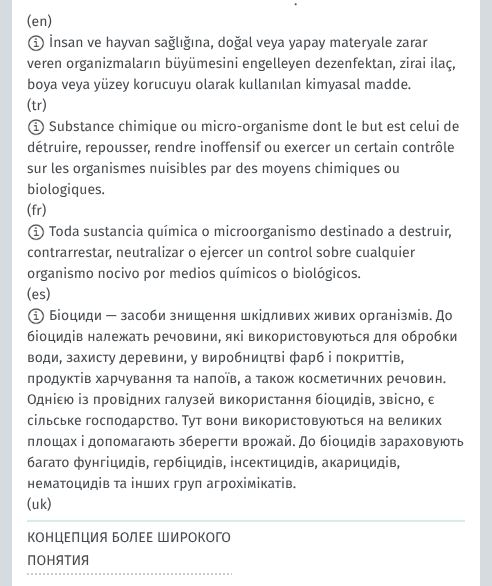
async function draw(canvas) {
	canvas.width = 492;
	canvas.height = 586;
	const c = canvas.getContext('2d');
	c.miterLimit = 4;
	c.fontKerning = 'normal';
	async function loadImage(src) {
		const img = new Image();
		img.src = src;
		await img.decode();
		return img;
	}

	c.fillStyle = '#d5dbde';
	c.fillRect(0, 0, 492, 586);
	c.fillStyle = '#fff';
	c.fillRect(12, 0, 468, 586);
	c.fillStyle = '#d4edeb';
	c.fillRect(27, 520, 438, 2);
	c.font = '14px Fira Sans';
	c.fillStyle = '#474b4f';
	c.fillText('.', 294, 5);
	c.fillText('(en)', 27, 26);
	c.drawImage(await loadImage('img1.png'), 27, 35, 18, 17);
	for (const [text, x, y] of [
		['İnsan ve hayvan sağlığına, doğal veya yapay materyale zarar', 49, 47],
		['veren organizmaların büyümesini engelleyen dezenfektan, zirai ilaç,', 27, 68],
		['boya veya yüzey korucuyu olarak kullanılan kimyasal madde.', 27, 89],
		['(tr)', 27, 110],
	]) {
		c.fillText(text, x, y);
	}
	c.drawImage(await loadImage('img1.png'), 27, 119, 18, 17);
	for (const [text, x, y] of [
		['Substance chimique ou micro-organisme dont le but est celui de', 49, 131],
		['détruire, repousser, rendre inoffensif ou exercer un certain contrôle', 27, 152],
		['sur les organismes nuisibles par des moyens chimiques ou', 27, 173],
		['biologiques.', 27, 194],
		['(fr)', 27, 215],
	]) {
		c.fillText(text, x, y);
	}
	c.drawImage(await loadImage('img1.png'), 27, 224, 18, 17);
	for (const [text, x, y] of [
		['Toda sustancia química o microorganismo destinado a destruir,', 49, 236],
		['contrarrestar, neutralizar o ejercer un control sobre cualquier', 27, 257],
		['organismo nocivo por medios químicos o biológicos.', 27, 278],
		['(es)', 27, 299],
	]) {
		c.fillText(text, x, y);
	}
	c.drawImage(await loadImage('img1.png'), 27, 308, 18, 17);
	for (const [text, x, y] of [
		['Біоциди — засоби знищення шкідливих живих організмів. До', 49, 320],
		['біоцидів належать речовини, які використовуються для обробки', 27, 341],
		['води, захисту деревини, у виробництві фарб і покриттів,', 27, 362],
		['продуктів харчування та напоїв, а також косметичних речовин.', 27, 383],
		['Однією із провідних галузей використання біоцидів, звісно, є', 27, 404],
		['сільське господарство. Тут вони використовуються на великих', 27, 425],
		['площах і допомагають зберегти врожай. До біоцидів зараховують', 27, 446],
		['багато фунгіцидів, гербіцидів, інсектицидів, акарицидів,', 27, 467],
		['нематоцидів та інших груп агрохімікатів.', 27, 488],
		['(uk)', 27, 509],
	]) {
		c.fillText(text, x, y);
	}
	c.beginPath();
	c.moveTo(27, 574);
	c.lineTo(232, 574);
	c.strokeStyle = '#ccc';
	c.lineWidth = 2;
	c.setLineDash([2, 2]);
	c.stroke();
	c.fillText('КОНЦЕПЦИЯ БОЛЕЕ ШИРОКОГО', 27, 542);
	c.fillText('ПОНЯТИЯ', 27, 565);
}

draw(document.querySelector('canvas'));
